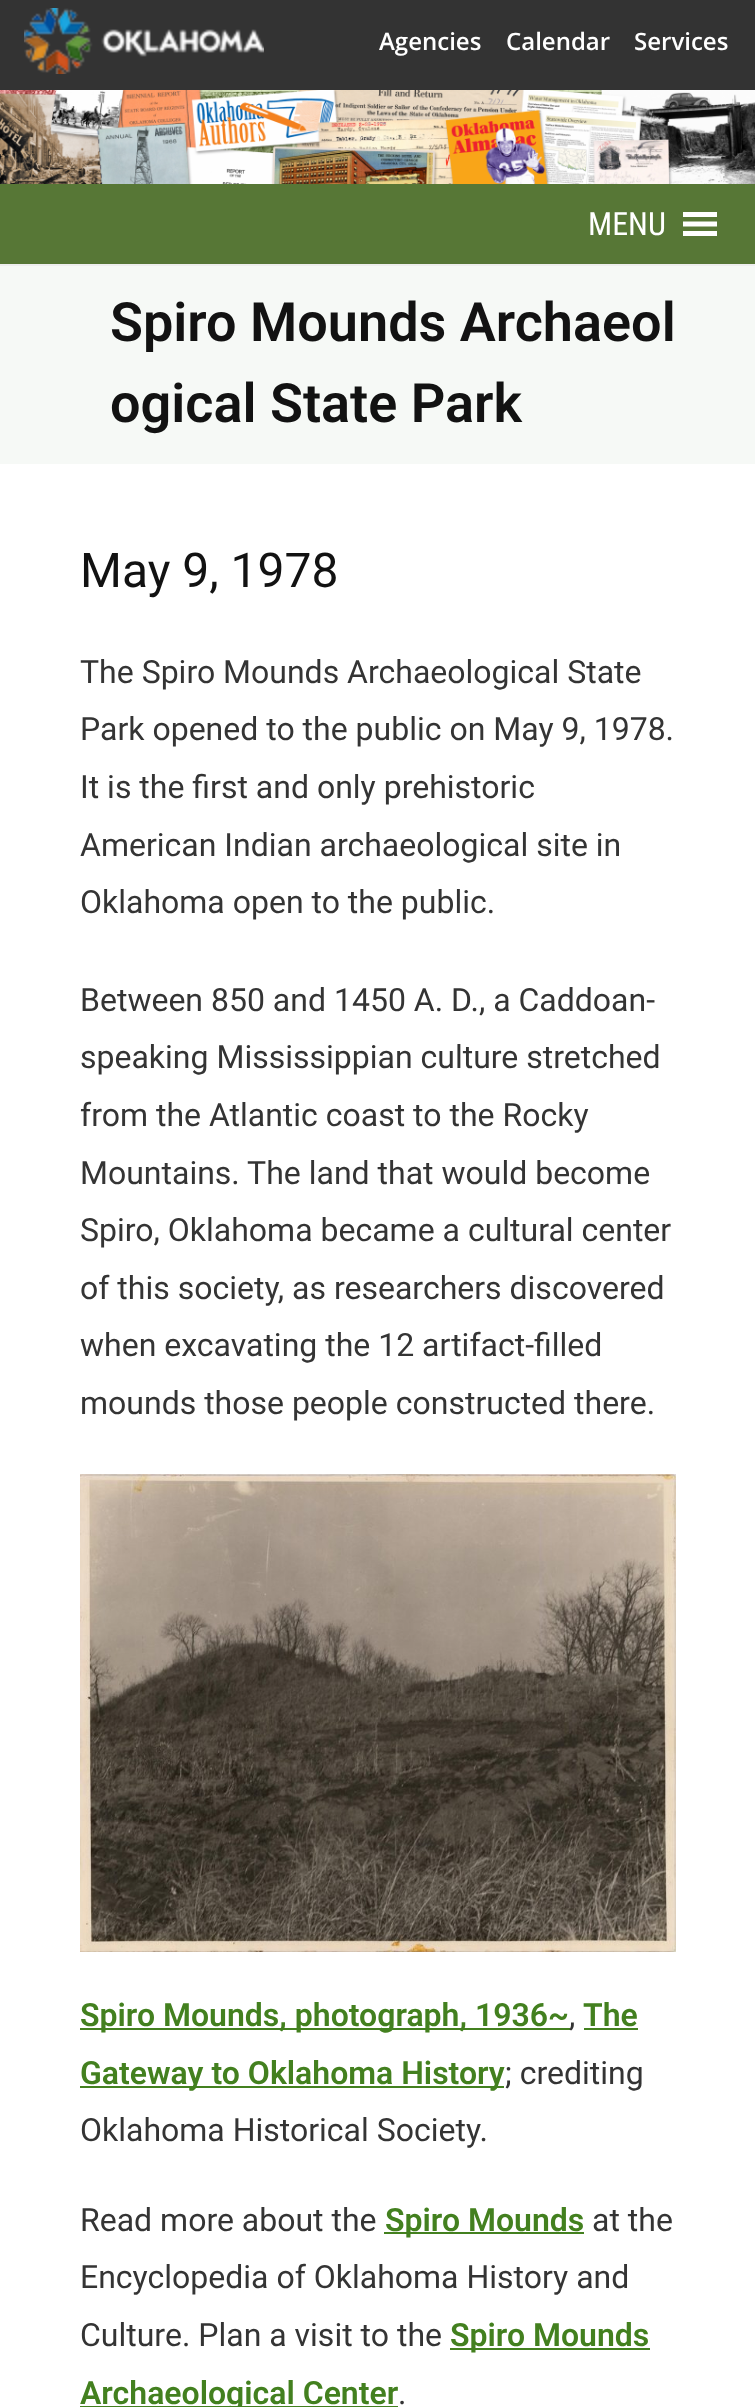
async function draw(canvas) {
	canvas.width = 755;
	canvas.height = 2407;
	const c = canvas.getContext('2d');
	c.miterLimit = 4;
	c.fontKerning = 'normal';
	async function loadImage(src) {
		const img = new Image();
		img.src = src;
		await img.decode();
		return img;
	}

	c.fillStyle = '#fff';
	c.fillRect(0, 0, 755, 2407);
	c.fillStyle = '#333';
	c.fillRect(0, 0, 755, 90);
	c.drawImage(await loadImage('img1.png'), 24, 8, 240, 66);
	c.font = '600 24px Open Sans';
	c.fillStyle = '#fff';
	for (const [text, x, y] of [
		['Agencies', 379, 50],
		['Calendar', 506, 50],
		['Services', 634, 50],
	]) {
		c.fillText(text, x, y);
	}
	c.drawImage(await loadImage('img2.png'), 0, 90, 755, 94);
	c.fillStyle = '#577736';
	c.fillRect(0, 184, 755, 80);
	c.fillStyle = '#eee';
	c.fillRect(0, 264, 755, 2);
	c.font = '32px Roboto Condensed';
	c.fillStyle = '#fff';
	c.fillText('MENU', 588, 235);
	c.beginPath();
	c.moveTo(683, 236);
	c.lineTo(717, 236);
	c.lineTo(717, 231);
	c.lineTo(683, 231);
	c.closePath();
	c.moveTo(683, 212);
	c.lineTo(683, 217);
	c.lineTo(717, 217);
	c.lineTo(717, 212);
	c.closePath();
	c.moveTo(683, 226.5);
	c.lineTo(717, 226.5);
	c.lineTo(717, 221.5);
	c.lineTo(683, 221.5);
	c.closePath();
	c.fill();
	c.fillStyle = '#f6f9f6';
	c.fillRect(0, 266, 755, 198);
	c.font = '600 54px Roboto';
	c.fillStyle = '#121212';
	c.fillText('Spiro Mounds Archaeol', 110, 341);
	c.fillText('ogical State Park', 110, 422);
	c.font = '48px Roboto';
	c.fillText('May 9, 1978', 80, 587);
	c.font = '32px Roboto';
	c.fillStyle = '#343434';
	for (const [text, x, y] of [
		['The Spiro Mounds Archaeological State', 80, 683],
		['Park opened to the public on May 9, 1978.', 80, 740],
		['It is the first and only prehistoric', 80, 798],
		['American Indian archaeological site in', 80, 856],
		['Oklahoma open to the public.', 80, 913],
		['Between 850 and 1450 A. D., a Caddoan-', 80, 1011],
		['speaking Mississippian culture stretched', 80, 1068],
		['from the Atlantic coast to the Rocky', 80, 1126],
		['Mountains. The land that would become', 80, 1184],
		['Spiro, Oklahoma became a cultural center', 80, 1241],
		['of this society, as researchers discovered', 80, 1299],
		['when excavating the 12 artifact-filled', 80, 1356],
		['mounds those people constructed there.', 80, 1414],
	]) {
		c.fillText(text, x, y);
	}
	c.drawImage(await loadImage('img3.png'), 80, 1474, 596, 478);
	c.fillStyle = '#43801f';
	c.fillRect(80, 2028, 490, 2);
	c.font = '600 32px Roboto';
	c.fillText('Spiro Mounds, photograph, 1936~', 80, 2026);
	c.font = '32px Roboto';
	c.fillStyle = '#343434';
	c.fillText(',', 569, 2026);
	c.font = '600 32px Roboto';
	c.fillStyle = '#43801f';
	c.fillText('The', 583, 2026);
	c.fillRect(584, 2028, 54, 2);
	c.fillRect(80, 2086, 424, 2);
	c.fillText('Gateway to Oklahoma History', 80, 2084);
	c.font = '32px Roboto';
	c.fillStyle = '#343434';
	for (const [text, x, y] of [
		['; crediting', 505, 2084],
		['Oklahoma Historical Society.', 80, 2141],
		['Read more about the', 80, 2231],
	]) {
		c.fillText(text, x, y);
	}
	c.fillStyle = '#43801f';
	c.fillRect(384, 2232, 200, 2);
	c.font = '600 32px Roboto';
	c.fillText('Spiro Mounds', 385, 2231);
	c.font = '32px Roboto';
	c.fillStyle = '#343434';
	for (const [text, x, y] of [
		['at the', 592, 2231],
		['Encyclopedia of Oklahoma History and', 80, 2288],
		['Culture. Plan a visit to the', 80, 2346],
	]) {
		c.fillText(text, x, y);
	}
	c.fillStyle = '#43801f';
	c.fillRect(450, 2348, 200, 2);
	c.font = '600 32px Roboto';
	c.fillText('Spiro Mounds', 450, 2346);
	c.fillRect(80, 2406, 318, 1);
	c.fillText('Archaeological Center', 80, 2404);
	c.font = '32px Roboto';
	c.fillStyle = '#343434';
	c.fillText('.', 398, 2404);
}

draw(document.querySelector('canvas'));
